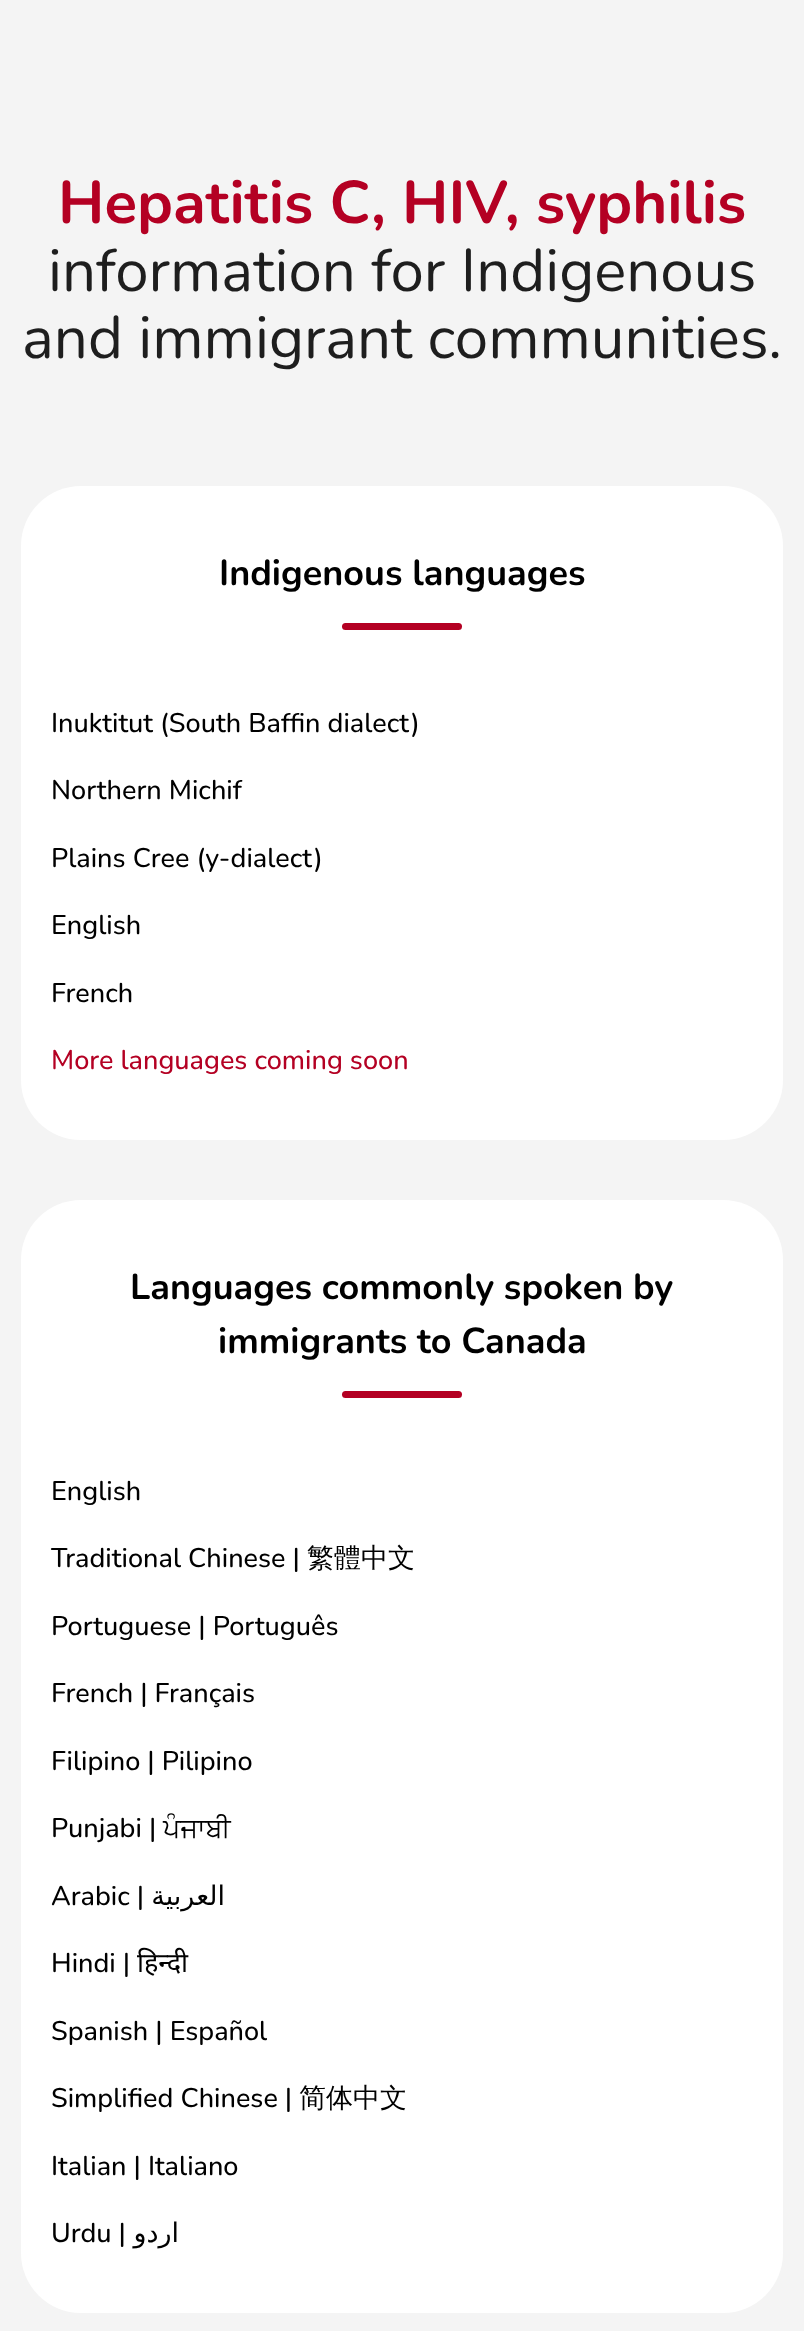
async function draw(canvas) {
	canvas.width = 804;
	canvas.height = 2331;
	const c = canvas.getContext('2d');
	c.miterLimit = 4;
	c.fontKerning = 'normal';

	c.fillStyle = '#f4f4f4';
	c.fillRect(0, 0, 804, 2331);
	c.font = 'bold 60px Nunito';
	c.fillStyle = '#b40023';
	c.fillText('Hepatitis C, HIV, syphilis', 58, 223);
	c.font = '60px Nunito';
	c.fillStyle = '#1e1e1e';
	c.fillText('information for Indigenous', 48, 291);
	c.fillText('and immigrant communities.', 22, 358);
	c.fillStyle = '#fff';
	c.beginPath();
	c.roundRect(21, 486, 762, 654, 60);
	c.fill();
	c.font = 'bold 36px Nunito';
	c.fillStyle = '#000';
	c.fillText('Indigenous languages', 219, 585);
	c.fillStyle = '#b40023';
	c.beginPath();
	c.roundRect(342, 623, 120, 7, 3.5);
	c.fill();
	c.font = '500 27px Nunito';
	c.fillStyle = '#000';
	for (const [text, x, y] of [
		['Inuktitut (South Baffin dialect)', 51, 732],
		['Northern Michif', 51, 799],
		['Plains Cree (y-dialect)', 51, 867],
		['English', 51, 934],
		['French', 51, 1002],
	]) {
		c.fillText(text, x, y);
	}
	c.fillStyle = '#b40023';
	c.fillText('More languages coming soon', 51, 1069);
	c.fillStyle = '#fff';
	c.beginPath();
	c.roundRect(21, 1200, 762, 1113, 60);
	c.fill();
	c.font = 'bold 36px Nunito';
	c.fillStyle = '#000';
	c.fillText('Languages commonly spoken by', 130, 1299);
	c.fillText('immigrants to Canada', 218, 1353);
	c.fillStyle = '#b40023';
	c.beginPath();
	c.roundRect(342, 1391, 120, 7, 3.5);
	c.fill();
	c.font = '500 27px Nunito';
	c.fillStyle = '#000';
	c.fillText('English', 51, 1500);
	c.fillText('Traditional Chinese |', 51, 1567);
	c.font = '500 27px WenQuanYi Zen Hei';
	c.fillText('繁體中文', 307, 1567);
	c.font = '500 27px Nunito';
	for (const [text, x, y] of [
		['Portuguese | Português', 51, 1635],
		['French | Français', 51, 1702],
		['Filipino | Pilipino', 51, 1770],
		['Punjabi |', 51, 1837],
	]) {
		c.fillText(text, x, y);
	}
	c.font = '27px FreeSans';
	c.fillText('ਪੰਜਾਬੀ', 163, 1837);
	c.font = '500 27px Nunito';
	c.fillText('Arabic |', 51, 1905);
	c.direction = 'rtl';
	c.font = '27px DejaVu Sans';
	c.fillText('العربية', 225, 1905);
	c.direction = 'ltr';
	c.font = '500 27px Nunito';
	c.fillText('Hindi |', 51, 1972);
	c.font = '27px Noto Sans';
	c.fillText('हिन्दी', 137, 1972);
	c.font = '500 27px Nunito';
	c.fillText('Spanish | Español', 51, 2040);
	c.fillText('Simplified Chinese |', 51, 2107);
	c.font = '500 27px WenQuanYi Zen Hei';
	c.fillText('简体中文', 299, 2107);
	c.font = '500 27px Nunito';
	c.fillText('Italian | Italiano', 51, 2175);
	c.fillText('Urdu |', 51, 2242);
	c.direction = 'rtl';
	c.font = '27px DejaVu Sans';
	c.fillText('اردو', 179, 2242);
}

draw(document.querySelector('canvas'));
